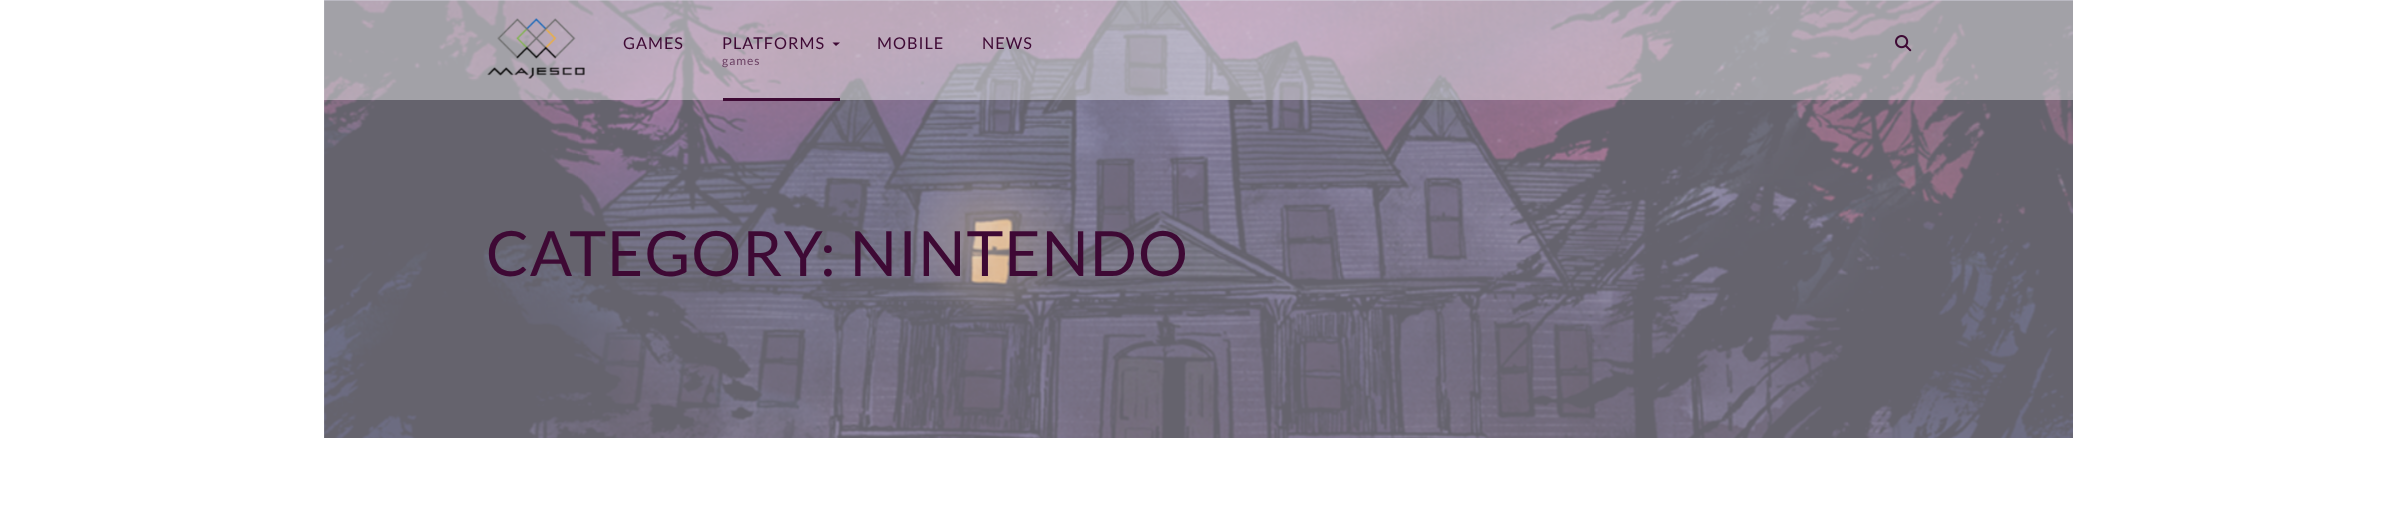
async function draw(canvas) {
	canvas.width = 2396;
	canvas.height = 505;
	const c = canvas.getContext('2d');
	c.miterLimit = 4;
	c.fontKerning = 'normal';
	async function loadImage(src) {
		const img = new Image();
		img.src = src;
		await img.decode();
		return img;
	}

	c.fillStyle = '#fff';
	c.fillRect(0, 0, 2396, 505);
	c.fillStyle = '#c7c4d8';
	c.fillRect(324, 0, 1749, 438);
	c.drawImage(await loadImage('img3.png'), 324, 0, 1749, 438);
	c.fillStyle = '#ffffff66';
	c.fillRect(324, 0, 1749, 100);
	c.drawImage(await loadImage('img1.png'), 487, 18, 98, 61);
	c.letterSpacing = '1px';
	c.font = '16.25px Lato';
	c.fillStyle = '#3e0934';
	c.fillText('GAMES', 623, 49);
	c.fillText('PLATFORMS', 722, 49);
	c.beginPath();
	c.moveTo(832.5, 42.5);
	c.lineTo(840, 42.5);
	c.lineTo(836, 46);
	c.closePath();
	c.fill();
	c.font = '12px Lato';
	c.fillStyle = '#6b4264';
	c.fillText('games', 722, 65);
	c.fillStyle = '#3e0934';
	c.fillRect(723, 98, 117, 3);
	c.font = '16.25px Lato';
	c.fillText('MOBILE', 877, 49);
	c.fillText('NEWS', 982, 49);
	c.drawImage(await loadImage('img2.png'), 1895, 35, 17, 17);
	c.font = '62.5px Lato';
	c.fillText('CATEGORY: NINTENDO', 486, 276);
}

draw(document.querySelector('canvas'));
